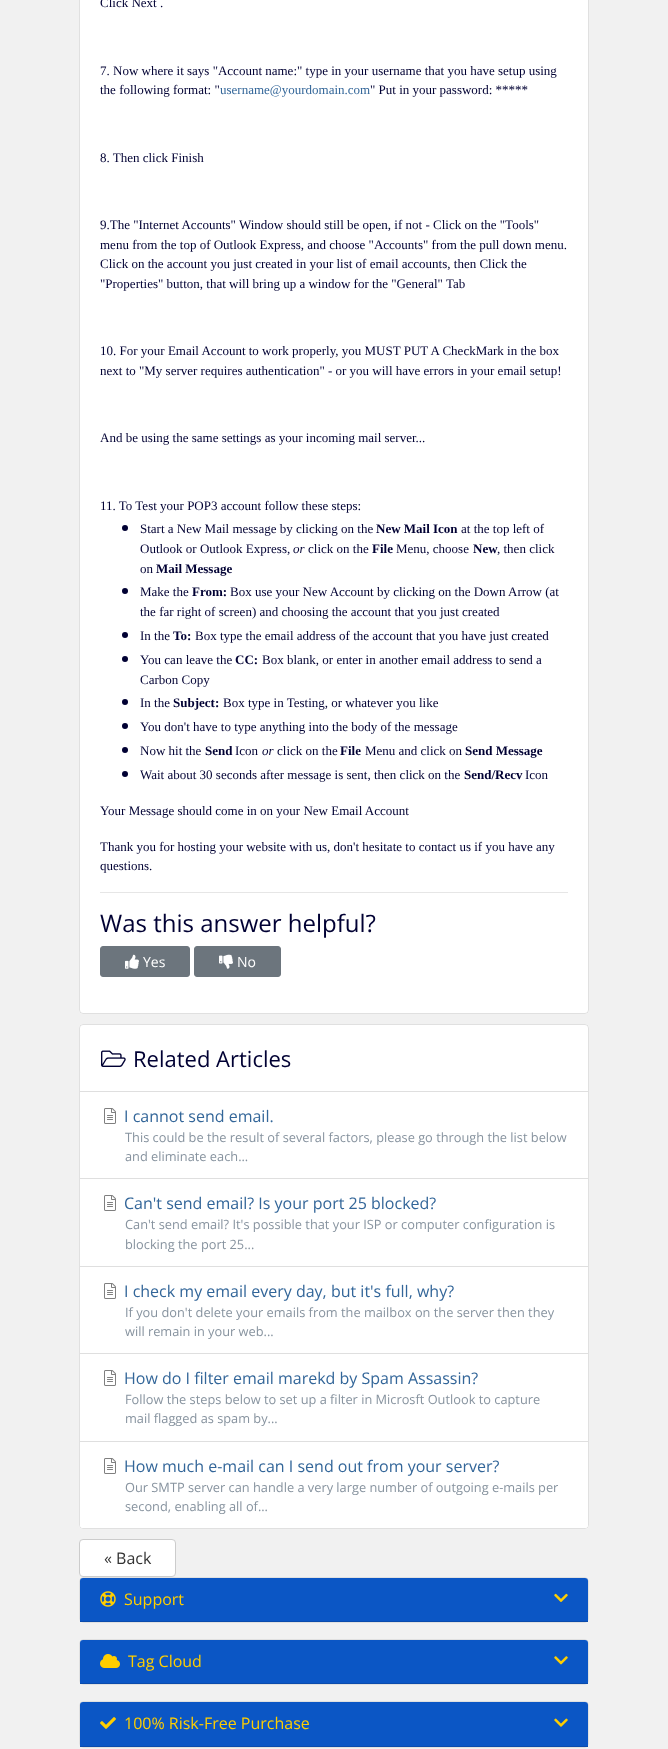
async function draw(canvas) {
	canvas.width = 668;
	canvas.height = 1749;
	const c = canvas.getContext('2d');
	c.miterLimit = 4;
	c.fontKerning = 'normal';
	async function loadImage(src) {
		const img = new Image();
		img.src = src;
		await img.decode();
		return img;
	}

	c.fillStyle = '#f1f1f1';
	c.fillRect(0, 0, 668, 1749);
	c.fillStyle = '#fff';
	c.beginPath();
	c.roundRect(79, -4, 510, 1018, 4);
	c.fill();
	c.beginPath();
	c.roundRect(79.5, -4.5, 509, 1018, 3.5);
	c.strokeStyle = '#0000001f';
	c.stroke();
	c.font = '13px Liberation Serif';
	c.fillStyle = '#003';
	for (const [text, x, y] of [
		['Click Next .', 100, 7],
		['7. Now where it says "Account name:" type in your username that you have setup using', 100, 75],
		['the following format: "', 100, 94],
	]) {
		c.fillText(text, x, y);
	}
	c.fillStyle = '#369';
	c.fillText('username@yourdomain.com', 220, 94);
	c.fillStyle = '#003';
	for (const [text, x, y] of [
		['" Put in your password: *****', 370, 94],
		['8. Then click Finish', 100, 162],
		['9.The "Internet Accounts" Window should still be open, if not - Click on the "Tools"', 100, 229],
		['menu from the top of Outlook Express, and choose "Accounts" from the pull down menu.', 100, 249],
		['Click on the account you just created in your list of email accounts, then Click the', 100, 268],
		['"Properties" button, that will bring up a window for the "General" Tab', 100, 288],
		['10. For your Email Account to work properly, you MUST PUT A CheckMark in the box', 100, 355],
		['next to "My server requires authentication" - or you will have errors in your email setup!', 100, 375],
		['And be using the same settings as your incoming mail server...', 100, 442],
		['11. To Test your POP3 account follow these steps:', 100, 510],
	]) {
		c.fillText(text, x, y);
	}
	c.beginPath();
	c.arc(125, 528, 3, 0, 2 * Math.PI);
	c.fill();
	c.fillText('Start a New Mail message by clicking on the', 140, 533);
	c.font = 'bold 13px Liberation Serif';
	c.fillText('New Mail Icon', 376, 533);
	c.font = '13px Liberation Serif';
	c.fillText('at the top left of', 461, 533);
	c.fillText('Outlook or Outlook Express,', 140, 553);
	c.font = 'italic 13px Liberation Serif';
	c.fillText('or', 293, 553);
	c.font = '13px Liberation Serif';
	c.fillText('click on the', 308, 553);
	c.font = 'bold 13px Liberation Serif';
	c.fillText('File', 372, 553);
	c.font = '13px Liberation Serif';
	c.fillText('Menu, choose', 396, 553);
	c.font = 'bold 13px Liberation Serif';
	c.fillText('New', 473, 553);
	c.font = '13px Liberation Serif';
	c.fillText(', then click', 497, 553);
	c.fillText('on', 140, 573);
	c.font = 'bold 13px Liberation Serif';
	c.fillText('Mail Message', 156, 573);
	c.beginPath();
	c.arc(125, 591, 3, 0, 2 * Math.PI);
	c.fill();
	c.font = '13px Liberation Serif';
	c.fillText('Make the', 140, 596);
	c.font = 'bold 13px Liberation Serif';
	c.fillText('From:', 192, 596);
	c.font = '13px Liberation Serif';
	c.fillText('Box use your New Account by clicking on the Down Arrow (at', 230, 596);
	c.fillText('the far right of screen) and choosing the account that you just created', 140, 616);
	c.beginPath();
	c.arc(125, 635, 3, 0, 2 * Math.PI);
	c.fill();
	c.fillText('In the', 140, 640);
	c.font = 'bold 13px Liberation Serif';
	c.fillText('To:', 173, 640);
	c.font = '13px Liberation Serif';
	c.fillText('Box type the email address of the account that you have just created', 195, 640);
	c.beginPath();
	c.arc(125, 659, 3, 0, 2 * Math.PI);
	c.fill();
	c.fillText('You can leave the', 140, 664);
	c.font = 'bold 13px Liberation Serif';
	c.fillText('CC:', 235, 664);
	c.font = '13px Liberation Serif';
	c.fillText('Box blank, or enter in another email address to send a', 262, 664);
	c.fillText('Carbon Copy', 140, 684);
	c.beginPath();
	c.arc(125, 702, 3, 0, 2 * Math.PI);
	c.fill();
	c.fillText('In the', 140, 707);
	c.font = 'bold 13px Liberation Serif';
	c.fillText('Subject:', 173, 707);
	c.font = '13px Liberation Serif';
	c.fillText('Box type in Testing, or whatever you like', 223, 707);
	c.beginPath();
	c.arc(125, 726, 3, 0, 2 * Math.PI);
	c.fill();
	c.fillText('You don\'t have to type anything into the body of the message', 140, 731);
	c.beginPath();
	c.arc(125, 750, 3, 0, 2 * Math.PI);
	c.fill();
	c.fillText('Now hit the', 140, 755);
	c.font = 'bold 13px Liberation Serif';
	c.fillText('Send', 205, 755);
	c.font = '13px Liberation Serif';
	c.fillText('Icon', 235, 755);
	c.font = 'italic 13px Liberation Serif';
	c.fillText('or', 262, 755);
	c.font = '13px Liberation Serif';
	c.fillText('click on the', 277, 755);
	c.font = 'bold 13px Liberation Serif';
	c.fillText('File', 340, 755);
	c.font = '13px Liberation Serif';
	c.fillText('Menu and click on', 365, 755);
	c.font = 'bold 13px Liberation Serif';
	c.fillText('Send Message', 465, 755);
	c.beginPath();
	c.arc(125, 774, 3, 0, 2 * Math.PI);
	c.fill();
	c.font = '13px Liberation Serif';
	c.fillText('Wait about 30 seconds after message is sent, then click on the', 140, 779);
	c.font = 'bold 13px Liberation Serif';
	c.fillText('Send/Recv', 464, 779);
	c.font = '13px Liberation Serif';
	for (const [text, x, y] of [
		['Icon', 525, 779],
		['Your Message should come in on your New Email Account', 100, 815],
		['Thank you for hosting your website with us, don\'t hesitate to contact us if you have any', 100, 851],
		['questions.', 100, 870],
	]) {
		c.fillText(text, x, y);
	}
	c.fillStyle = '#e6e6e6';
	c.fillRect(100, 892, 468, 1);
	c.font = '24px Open Sans';
	c.fillStyle = '#003';
	c.fillText('Was this answer helpful?', 100, 932);
	c.fillStyle = '#6c757d';
	c.beginPath();
	c.roundRect(100.5, 946.5, 89, 30, 2.5);
	c.fill();
	c.strokeStyle = '#6c757d';
	c.stroke();
	c.drawImage(await loadImage('img1.png'), 125, 954, 14, 15);
	c.font = '14px Open Sans';
	c.fillStyle = '#fff';
	c.fillText('Yes', 143, 967);
	c.fillStyle = '#6c757d';
	c.beginPath();
	c.roundRect(194.5, 946.5, 86, 30, 2.5);
	c.fill();
	c.stroke();
	c.drawImage(await loadImage('img2.png'), 219, 954, 14, 15);
	c.fillStyle = '#fff';
	c.fillText('No', 237, 967);
	c.beginPath();
	c.roundRect(79, 1024, 510, 505, 4);
	c.fill();
	c.beginPath();
	c.roundRect(79.5, 1024.5, 509, 504, 3.5);
	c.strokeStyle = '#0000001f';
	c.stroke();
	c.drawImage(await loadImage('img3.png'), 101, 1050, 25, 17);
	c.font = '22px Open Sans';
	c.fillStyle = '#003';
	c.fillText('Related Articles', 133, 1067);
	c.fillStyle = '#dfdfdf';
	c.fillRect(80, 1091, 508, 1);
	c.fillRect(80, 1178, 508, 1);
	c.drawImage(await loadImage('img4.png'), 104, 1108, 12, 16);
	c.font = '16px Open Sans';
	c.fillStyle = '#369';
	c.fillText('I cannot send email.', 124, 1122);
	c.font = '12.8px Open Sans';
	c.fillStyle = '#87939f';
	c.fillText('This could be the result of several factors, please go through the list below', 125, 1142);
	c.fillText('and eliminate each...', 125, 1161);
	c.fillStyle = '#dfdfdf';
	c.fillRect(80, 1266, 508, 1);
	c.drawImage(await loadImage('img4.png'), 104, 1195, 12, 16);
	c.font = '16px Open Sans';
	c.fillStyle = '#369';
	c.fillText('Can\'t send email? Is your port 25 blocked?', 124, 1209);
	c.font = '12.8px Open Sans';
	c.fillStyle = '#87939f';
	c.fillText('Can\'t send email? It\'s possible that your ISP or computer configuration is', 125, 1229);
	c.fillText('blocking the port 25...', 125, 1249);
	c.fillStyle = '#dfdfdf';
	c.fillRect(80, 1353, 508, 1);
	c.drawImage(await loadImage('img4.png'), 104, 1283, 12, 16);
	c.font = '16px Open Sans';
	c.fillStyle = '#369';
	c.fillText('I check my email every day, but it\'s full, why?', 124, 1297);
	c.font = '12.8px Open Sans';
	c.fillStyle = '#87939f';
	c.fillText('If you don\'t delete your emails from the mailbox on the server then they', 125, 1317);
	c.fillText('will remain in your web...', 125, 1336);
	c.fillStyle = '#dfdfdf';
	c.fillRect(80, 1441, 508, 1);
	c.drawImage(await loadImage('img4.png'), 104, 1370, 12, 16);
	c.font = '16px Open Sans';
	c.fillStyle = '#369';
	c.fillText('How do I filter email marekd by Spam Assassin?', 124, 1384);
	c.font = '12.8px Open Sans';
	c.fillStyle = '#87939f';
	c.fillText('Follow the steps below to set up a filter in Microsft Outlook to capture', 125, 1404);
	c.fillText('mail flagged as spam by...', 125, 1423);
	c.fillStyle = '#fff';
	c.beginPath();
	c.roundRect(80, 1442, 508, 86, [0, 0, 3, 3]);
	c.fill();
	c.drawImage(await loadImage('img4.png'), 104, 1458, 12, 16);
	c.font = '16px Open Sans';
	c.fillStyle = '#369';
	c.fillText('How much e-mail can I send out from your server?', 124, 1472);
	c.font = '12.8px Open Sans';
	c.fillStyle = '#87939f';
	c.fillText('Our SMTP server can handle a very large number of outgoing e-mails per', 125, 1492);
	c.fillText('second, enabling all of...', 125, 1511);
	c.fillStyle = '#fff';
	c.beginPath();
	c.roundRect(79.5, 1539.5, 96, 37, 3.5);
	c.fill();
	c.strokeStyle = '#ccc';
	c.stroke();
	c.font = '16px Open Sans';
	c.fillStyle = '#333';
	c.fillText('« Back', 104, 1564);
	c.fillStyle = '#fff';
	c.beginPath();
	c.roundRect(79, 1577, 510, 46, 4);
	c.fill();
	c.beginPath();
	c.roundRect(79.5, 1577.5, 509, 45, 3.5);
	c.strokeStyle = '#0000001f';
	c.stroke();
	c.fillStyle = '#0b56c5';
	c.beginPath();
	c.roundRect(80, 1578, 508, 44, [3, 3, 0, 0]);
	c.fill();
	c.fillStyle = '#0a4bac';
	c.fillRect(80, 1621, 508, 1);
	c.drawImage(await loadImage('img5.png'), 100, 1591, 16, 16);
	c.fillStyle = '#ffce00';
	c.fillText('Support', 124, 1605);
	c.drawImage(await loadImage('img6.png'), 554, 1593, 14, 9);
	c.fillStyle = '#fff';
	c.beginPath();
	c.roundRect(79, 1639, 510, 46, 4);
	c.fill();
	c.beginPath();
	c.roundRect(79.5, 1639.5, 509, 45, 3.5);
	c.stroke();
	c.fillStyle = '#0b56c5';
	c.beginPath();
	c.roundRect(80, 1640, 508, 44, [3, 3, 0, 0]);
	c.fill();
	c.fillStyle = '#0a4bac';
	c.fillRect(80, 1683, 508, 1);
	c.drawImage(await loadImage('img7.png'), 100, 1654, 20, 14);
	c.fillStyle = '#ffce00';
	c.fillText('Tag Cloud', 128, 1667);
	c.drawImage(await loadImage('img8.png'), 554, 1656, 14, 9);
	c.fillStyle = '#fff';
	c.beginPath();
	c.roundRect(79, 1701, 510, 47, 4);
	c.fill();
	c.beginPath();
	c.roundRect(79.5, 1701.5, 509, 46, 3.5);
	c.stroke();
	c.fillStyle = '#0b56c5';
	c.beginPath();
	c.roundRect(80, 1702, 508, 45, [3, 3, 0, 0]);
	c.fill();
	c.fillStyle = '#0a4bac';
	c.fillRect(80, 1746, 508, 1);
	c.drawImage(await loadImage('img9.png'), 100, 1717, 16, 12);
	c.fillStyle = '#ffce00';
	c.fillText('100% Risk-Free Purchase', 124, 1729);
	c.drawImage(await loadImage('img10.png'), 554, 1718, 14, 9);
}

draw(document.querySelector('canvas'));
